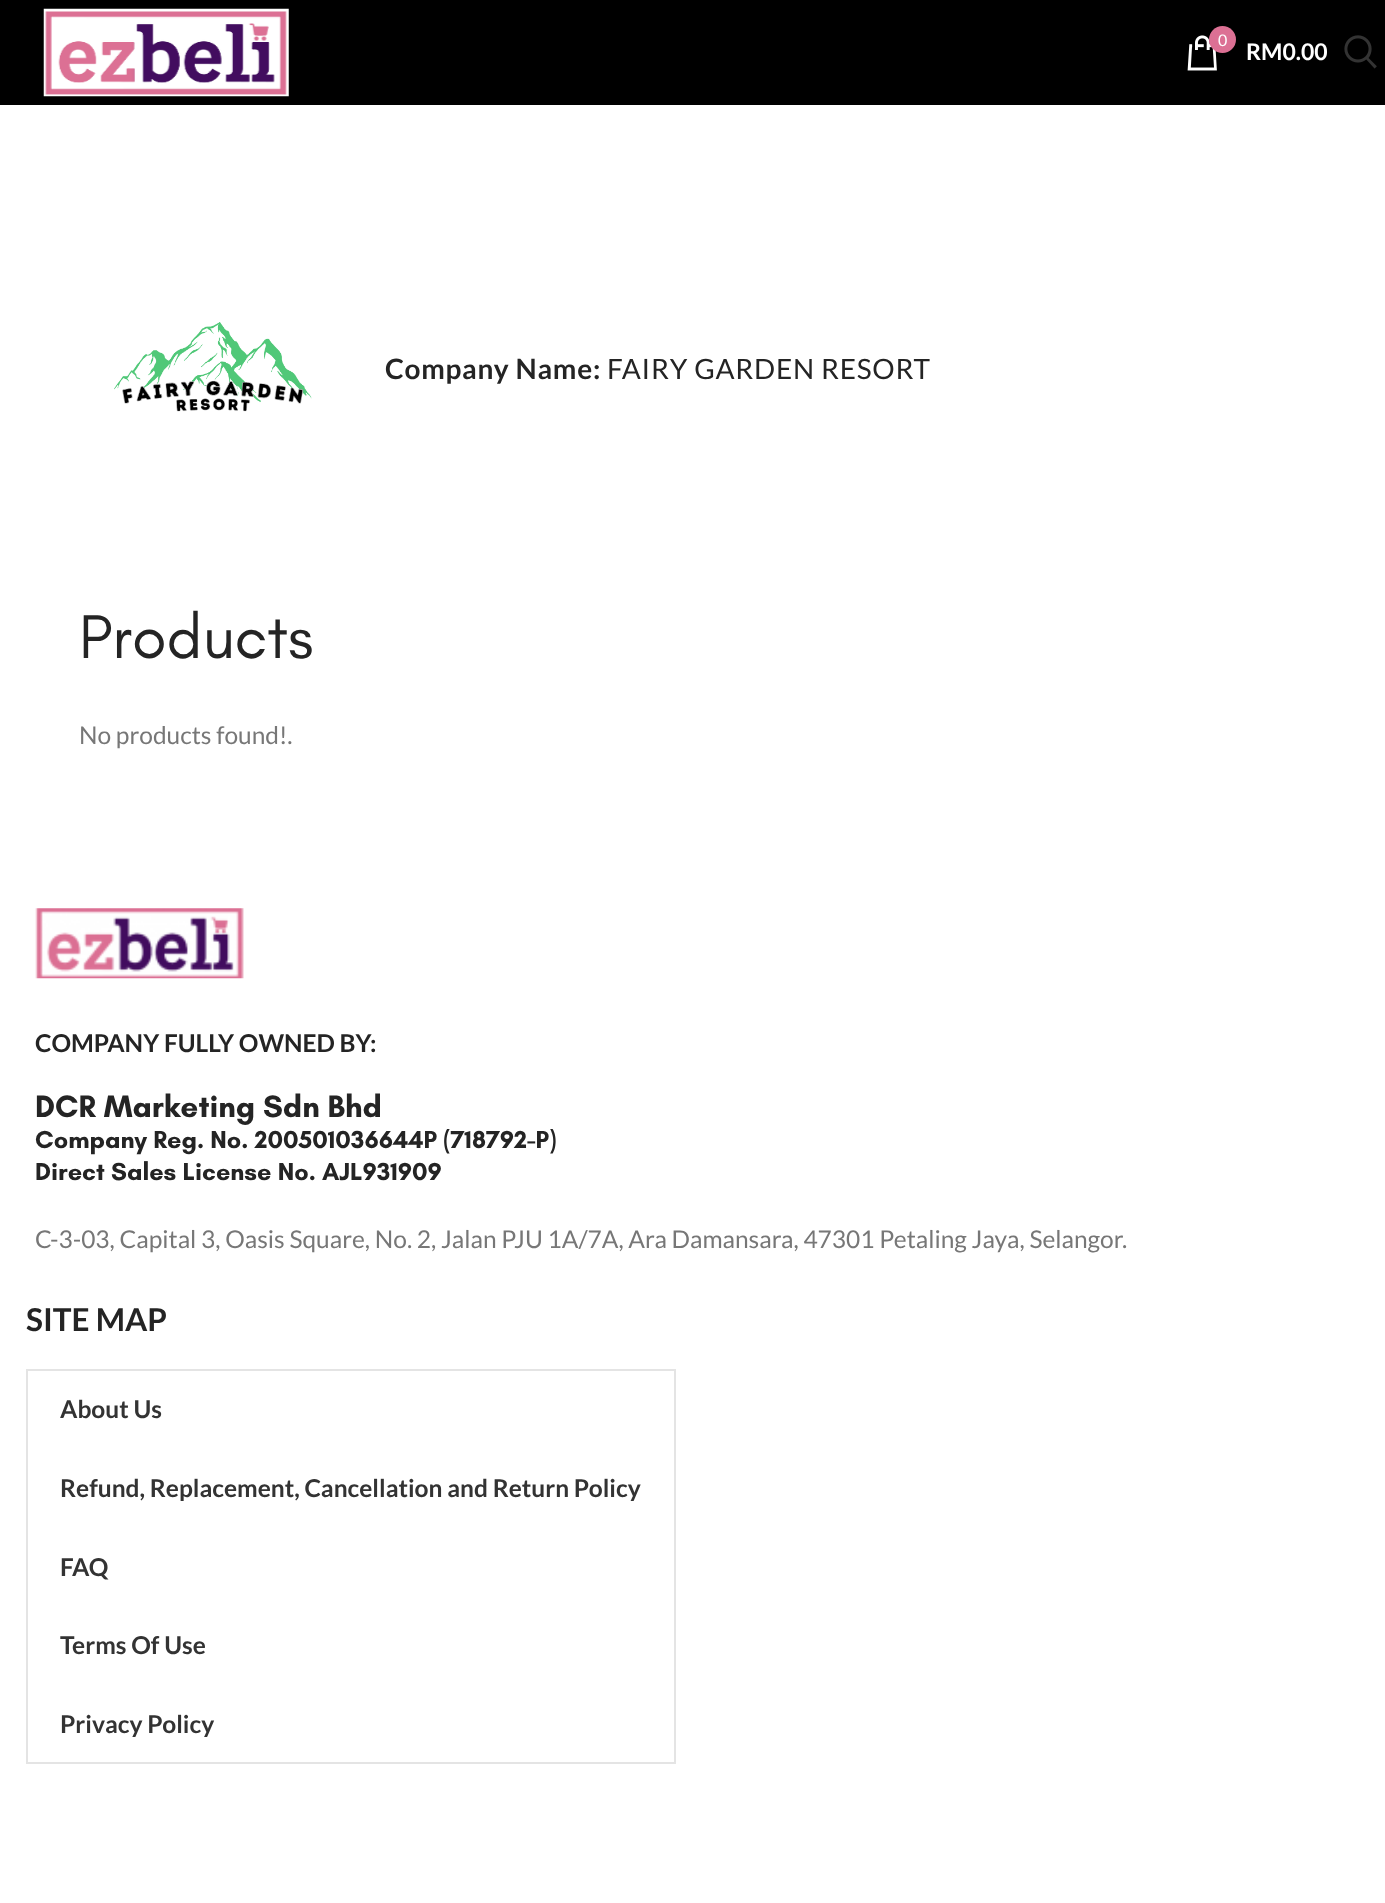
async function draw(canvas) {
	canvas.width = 1385;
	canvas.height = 1903;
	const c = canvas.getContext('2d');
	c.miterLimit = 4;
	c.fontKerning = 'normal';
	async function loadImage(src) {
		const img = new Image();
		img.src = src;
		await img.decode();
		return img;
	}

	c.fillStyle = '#fff';
	c.fillRect(0, 0, 1385, 1903);
	c.fillStyle = '#000';
	c.fillRect(0, 0, 1385, 105);
	c.drawImage(await loadImage('img1.png'), 43, 8, 246, 89);
	c.drawImage(await loadImage('img2.png'), 1187, 35, 30, 36);
	c.fillStyle = '#dc7094';
	c.beginPath();
	c.arc(1222.5, 39.5, 13.5, 0, 2 * Math.PI);
	c.fill();
	c.font = '16px Lato';
	c.fillStyle = '#fff';
	c.fillText('0', 1218, 46);
	c.font = 'bold 23px Lato';
	c.fillText('RM0.00', 1246, 60);
	c.drawImage(await loadImage('img3.png'), 1344, 35, 33, 34);
	c.drawImage(await loadImage('img4.png'), 114, 322, 198, 90);
	c.letterSpacing = '0.75px';
	c.font = 'bold 28px Lato';
	c.fillStyle = '#242424';
	c.fillText('Company Name:', 385, 379);
	c.font = '28px Lato';
	c.fillText('FAIRY GARDEN RESORT', 607, 379);
	c.letterSpacing = '0px';
	c.font = '63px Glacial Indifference';
	c.fillText('Products', 79, 658);
	c.font = '24.5px Lato';
	c.fillStyle = '#777';
	c.fillText('No products found!.', 79, 744);
	c.drawImage(await loadImage('img5.png'), 35, 908, 209, 71);
	c.font = 'bold 24.5px Lato';
	c.fillStyle = '#242424';
	c.fillText('COMPANY FULLY OWNED BY:', 35, 1052);
	c.font = 'bold 31.5px Glacial Indifference';
	c.fillText('DCR Marketing Sdn Bhd', 35, 1117);
	c.font = 'bold 25.2px Glacial Indifference';
	c.fillText('Company Reg. No. 200501036644P (718792-P)', 35, 1148);
	c.fillText('Direct Sales License No. AJL931909', 35, 1180);
	c.font = '24.5px Lato';
	c.fillStyle = '#777';
	c.fillText('C-3-03, Capital 3, Oasis Square, No. 2, Jalan PJU 1A/7A, Ara Damansara, 47301 Petaling Jaya, Selangor.', 35, 1248);
	c.font = 'bold 31.5px Lato';
	c.fillStyle = '#242424';
	c.fillText('SITE MAP', 26, 1331);
	c.strokeStyle = '#e4e4e4';
	c.lineWidth = 2;
	c.strokeRect(27, 1370, 648, 393);
	c.font = 'bold 24.5px Lato';
	c.fillStyle = '#333';
	for (const [text, x, y] of [
		['About Us', 60, 1418],
		['Refund, Replacement, Cancellation and Return Policy', 60, 1497],
		['FAQ', 60, 1576],
		['Terms Of Use', 60, 1654],
		['Privacy Policy', 60, 1733],
	]) {
		c.fillText(text, x, y);
	}
}

draw(document.querySelector('canvas'));
